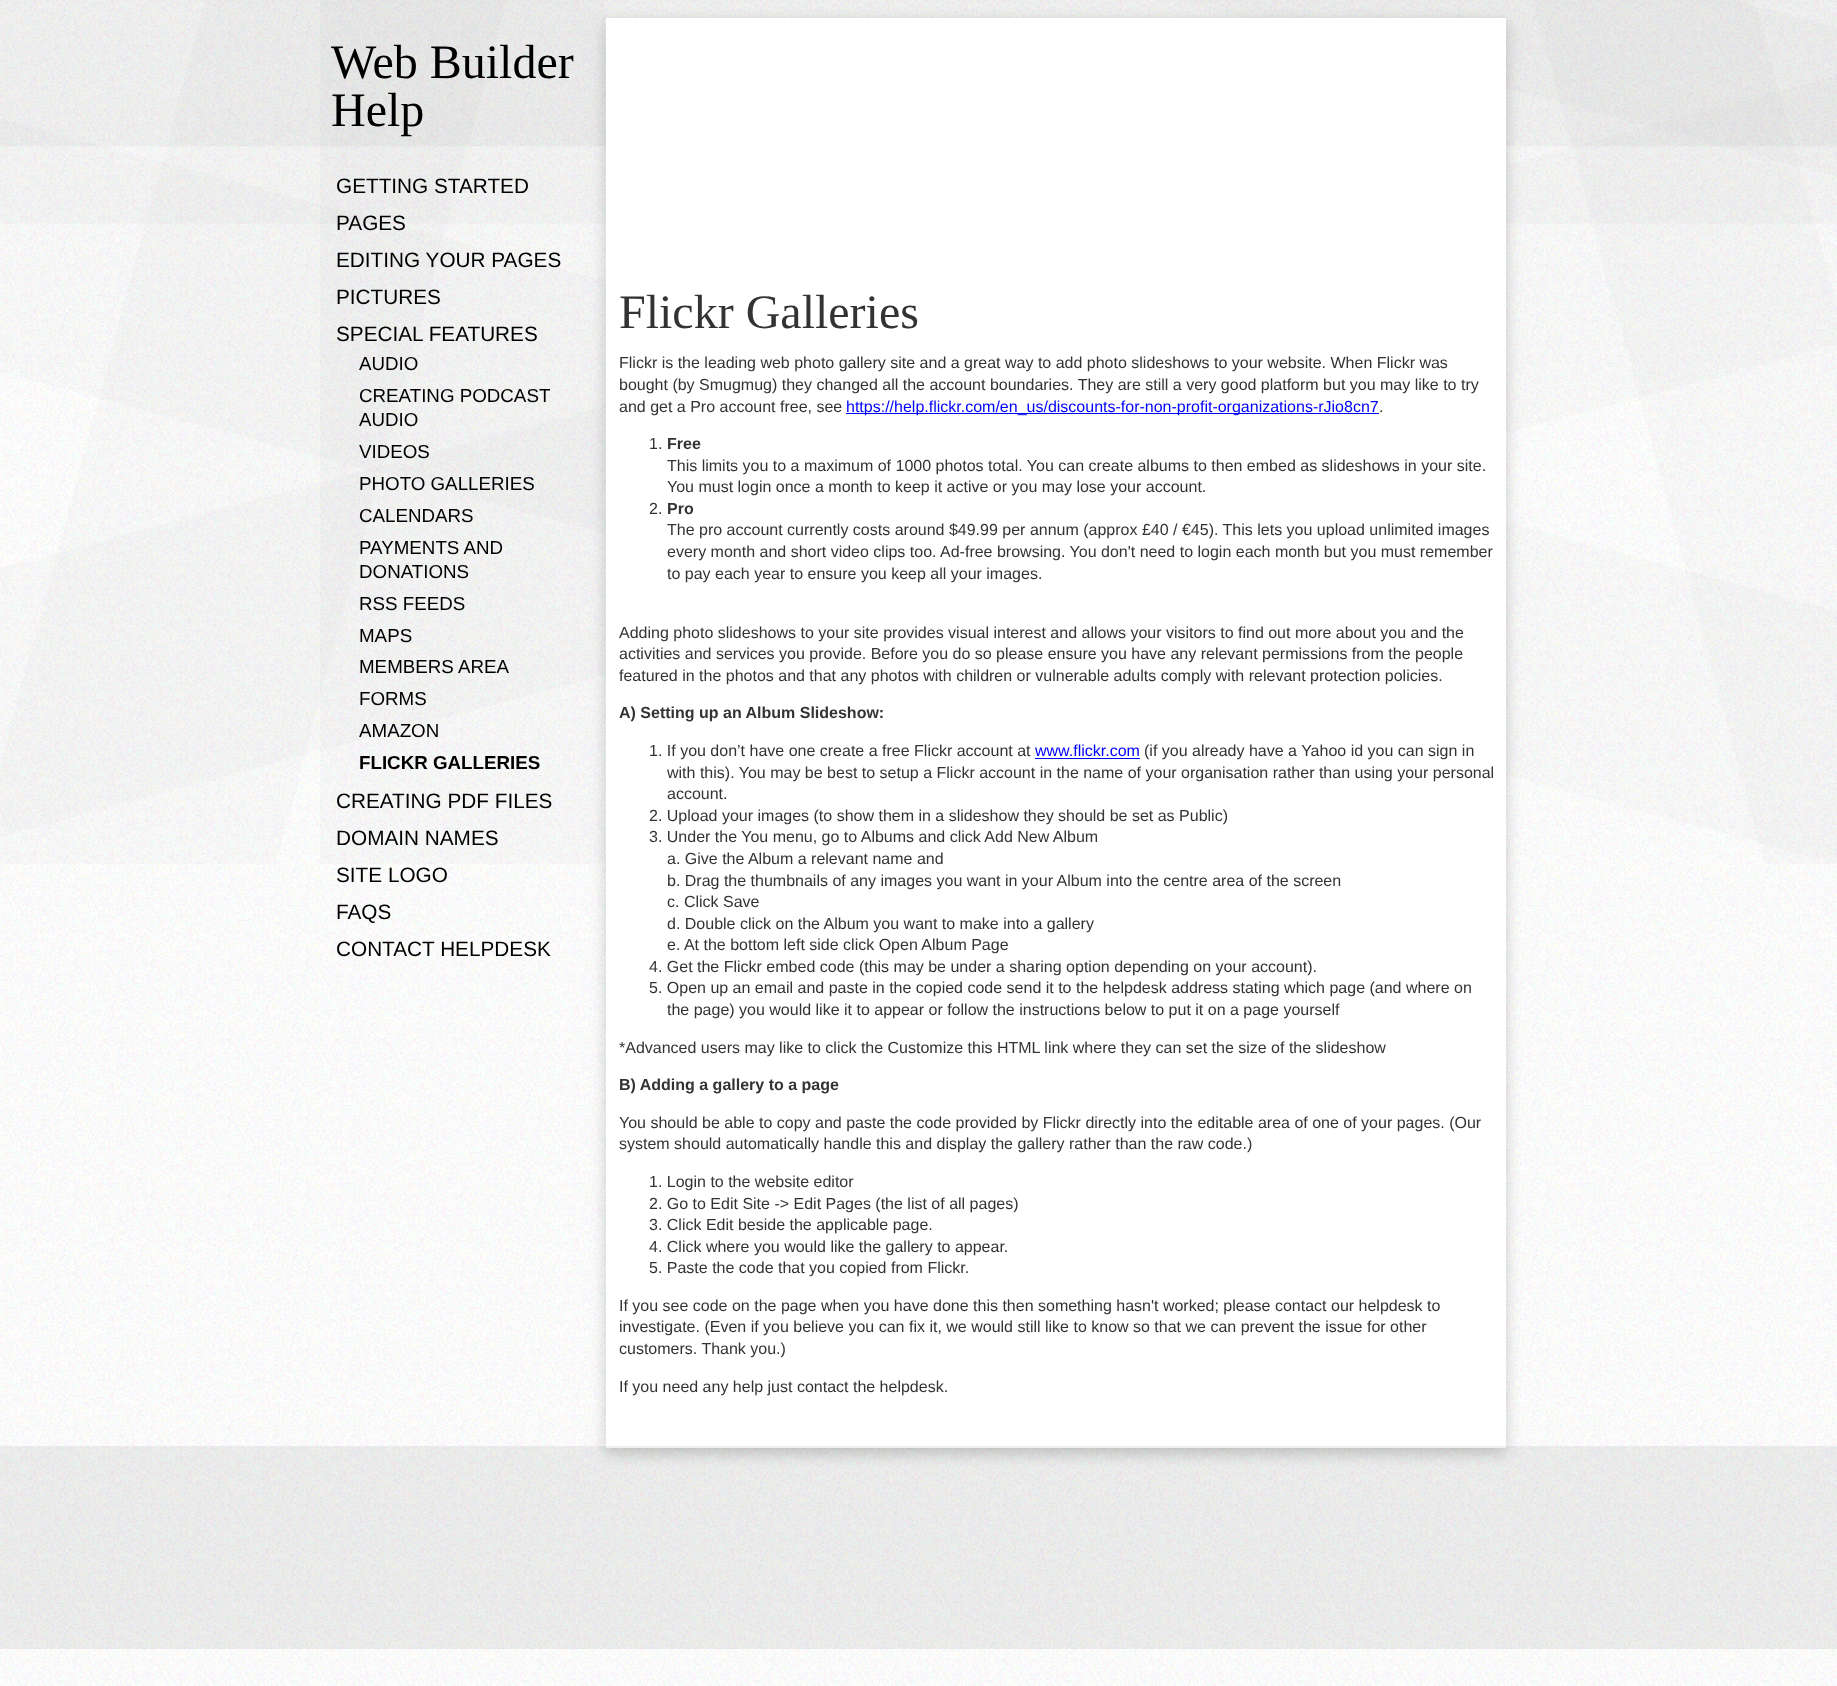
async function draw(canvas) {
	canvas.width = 1837;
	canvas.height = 1686;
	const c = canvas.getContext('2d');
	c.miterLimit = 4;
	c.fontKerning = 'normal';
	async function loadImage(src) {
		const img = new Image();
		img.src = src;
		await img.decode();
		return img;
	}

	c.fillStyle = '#fff';
	c.fillRect(0, 0, 1837, 1686);
	c.drawImage(await loadImage('img1.png'), 0, 0, 1837, 1686);
	c.drawImage(await loadImage('img2.png'), 0, 0, 1837, 864);
	c.font = '48px Liberation Serif';
	c.fillStyle = '#000';
	c.fillText('Web Builder', 331, 78);
	c.fillText('Help', 331, 126);
	c.font = '20.75px Liberation Sans';
	for (const [text, x, y] of [
		['GETTING STARTED', 336, 193],
		['PAGES', 336, 230],
		['EDITING YOUR PAGES', 336, 267],
		['PICTURES', 336, 304],
		['SPECIAL FEATURES', 336, 341],
	]) {
		c.fillText(text, x, y);
	}
	c.font = '18.75px Liberation Sans';
	for (const [text, x, y] of [
		['AUDIO', 359, 370],
		['CREATING PODCAST', 359, 402],
		['AUDIO', 359, 426],
		['VIDEOS', 359, 458],
		['PHOTO GALLERIES', 359, 490],
		['CALENDARS', 359, 522],
		['PAYMENTS AND', 359, 554],
		['DONATIONS', 359, 578],
		['RSS FEEDS', 359, 610],
		['MAPS', 359, 642],
		['MEMBERS AREA', 359, 673],
		['FORMS', 359, 705],
		['AMAZON', 359, 737],
	]) {
		c.fillText(text, x, y);
	}
	c.font = 'bold 18.75px Liberation Sans';
	c.fillText('FLICKR GALLERIES', 359, 769);
	c.font = '20.75px Liberation Sans';
	for (const [text, x, y] of [
		['CREATING PDF FILES', 336, 808],
		['DOMAIN NAMES', 336, 845],
		['SITE LOGO', 336, 882],
		['FAQS', 336, 919],
		['CONTACT HELPDESK', 336, 956],
	]) {
		c.fillText(text, x, y);
	}
	c.fillStyle = '#00000033';
	c.filter = 'blur(7.5px)';
	c.beginPath();
	c.rect(606, 23, 900, 1430);
	c.fill();
	c.filter = 'none';
	c.fillStyle = '#fff';
	c.fillRect(606, 18, 900, 1430);
	c.font = '48px Liberation Serif';
	c.fillStyle = '#333';
	c.fillText('Flickr Galleries', 619, 328);
	c.font = '16px Liberation Sans';
	for (const [text, x, y] of [
		['Flickr is the leading web photo gallery site and a great way to add photo slideshows to your website. When Flickr was', 619, 368],
		['bought (by Smugmug) they changed all the account boundaries. They are still a very good platform but you may like to try', 619, 390],
		['and get a Pro account free, see', 619, 412],
	]) {
		c.fillText(text, x, y);
	}
	c.fillStyle = '#00f';
	c.fillRect(846, 413, 533, 1);
	c.fillText('https://help.flickr.com/en_us/discounts-for-non-profit-organizations-rJio8cn7', 846, 412);
	c.fillStyle = '#333';
	c.fillText('.', 1379, 412);
	c.fillText('1.', 649, 449);
	c.font = 'bold 16px Liberation Sans';
	c.fillText('Free', 667, 449);
	c.font = '16px Liberation Sans';
	for (const [text, x, y] of [
		['This limits you to a maximum of 1000 photos total. You can create albums to then embed as slideshows in your site.', 667, 471],
		['You must login once a month to keep it active or you may lose your account.', 667, 492],
		['2.', 649, 514],
	]) {
		c.fillText(text, x, y);
	}
	c.font = 'bold 16px Liberation Sans';
	c.fillText('Pro', 667, 514);
	c.font = '16px Liberation Sans';
	for (const [text, x, y] of [
		['The pro account currently costs around $49.99 per annum (approx £40 / €45). This lets you upload unlimited images', 667, 535],
		['every month and short video clips too. Ad-free browsing. You don\'t need to login each month but you must remember', 667, 557],
		['to pay each year to ensure you keep all your images.', 667, 579],
		['Adding photo slideshows to your site provides visual interest and allows your visitors to find out more about you and the', 619, 638],
		['activities and services you provide. Before you do so please ensure you have any relevant permissions from the people', 619, 659],
		['featured in the photos and that any photos with children or vulnerable adults comply with relevant protection policies.', 619, 681],
	]) {
		c.fillText(text, x, y);
	}
	c.font = 'bold 16px Liberation Sans';
	c.fillText('A) Setting up an Album Slideshow:', 619, 718);
	c.font = '16px Liberation Sans';
	c.fillText('1. If you don’t have one create a free Flickr account at', 649, 756);
	c.fillStyle = '#00f';
	c.fillText('www.flickr.com', 1035, 756);
	c.fillRect(1035, 758, 105, 1);
	c.fillStyle = '#333';
	for (const [text, x, y] of [
		['(if you already have a Yahoo id you can sign in', 1144, 756],
		['with this). You may be best to setup a Flickr account in the name of your organisation rather than using your personal', 667, 778],
		['account.', 667, 799],
		['2. Upload your images (to show them in a slideshow they should be set as Public)', 649, 821],
		['3. Under the You menu, go to Albums and click Add New Album', 649, 842],
		['a. Give the Album a relevant name and', 667, 864],
		['b. Drag the thumbnails of any images you want in your Album into the centre area of the screen', 667, 886],
		['c. Click Save', 667, 907],
		['d. Double click on the Album you want to make into a gallery', 667, 929],
		['e. At the bottom left side click Open Album Page', 667, 950],
		['4. Get the Flickr embed code (this may be under a sharing option depending on your account).', 649, 972],
		['5. Open up an email and paste in the copied code send it to the helpdesk address stating which page (and where on', 649, 993],
		['the page) you would like it to appear or follow the instructions below to put it on a page yourself', 667, 1015],
		['*Advanced users may like to click the Customize this HTML link where they can set the size of the slideshow', 619, 1053],
	]) {
		c.fillText(text, x, y);
	}
	c.font = 'bold 16px Liberation Sans';
	c.fillText('B) Adding a gallery to a page', 619, 1090);
	c.font = '16px Liberation Sans';
	for (const [text, x, y] of [
		['You should be able to copy and paste the code provided by Flickr directly into the editable area of one of your pages. (Our', 619, 1128],
		['system should automatically handle this and display the gallery rather than the raw code.)', 619, 1149],
		['1. Login to the website editor', 649, 1187],
		['2. Go to Edit Site -> Edit Pages (the list of all pages)', 649, 1209],
		['3. Click Edit beside the applicable page.', 649, 1230],
		['4. Click where you would like the gallery to appear.', 649, 1252],
		['5. Paste the code that you copied from Flickr.', 649, 1273],
		['If you see code on the page when you have done this then something hasn\'t worked; please contact our helpdesk to', 619, 1311],
		['investigate. (Even if you believe you can fix it, we would still like to know so that we can prevent the issue for other', 619, 1332],
		['customers. Thank you.)', 619, 1354],
		['If you need any help just contact the helpdesk.', 619, 1392],
	]) {
		c.fillText(text, x, y);
	}
	c.fillStyle = '#00000008';
	c.fillRect(0, 1446, 1837, 203);
	c.fillRect(0, 1446, 1837, 203);
}

draw(document.querySelector('canvas'));
